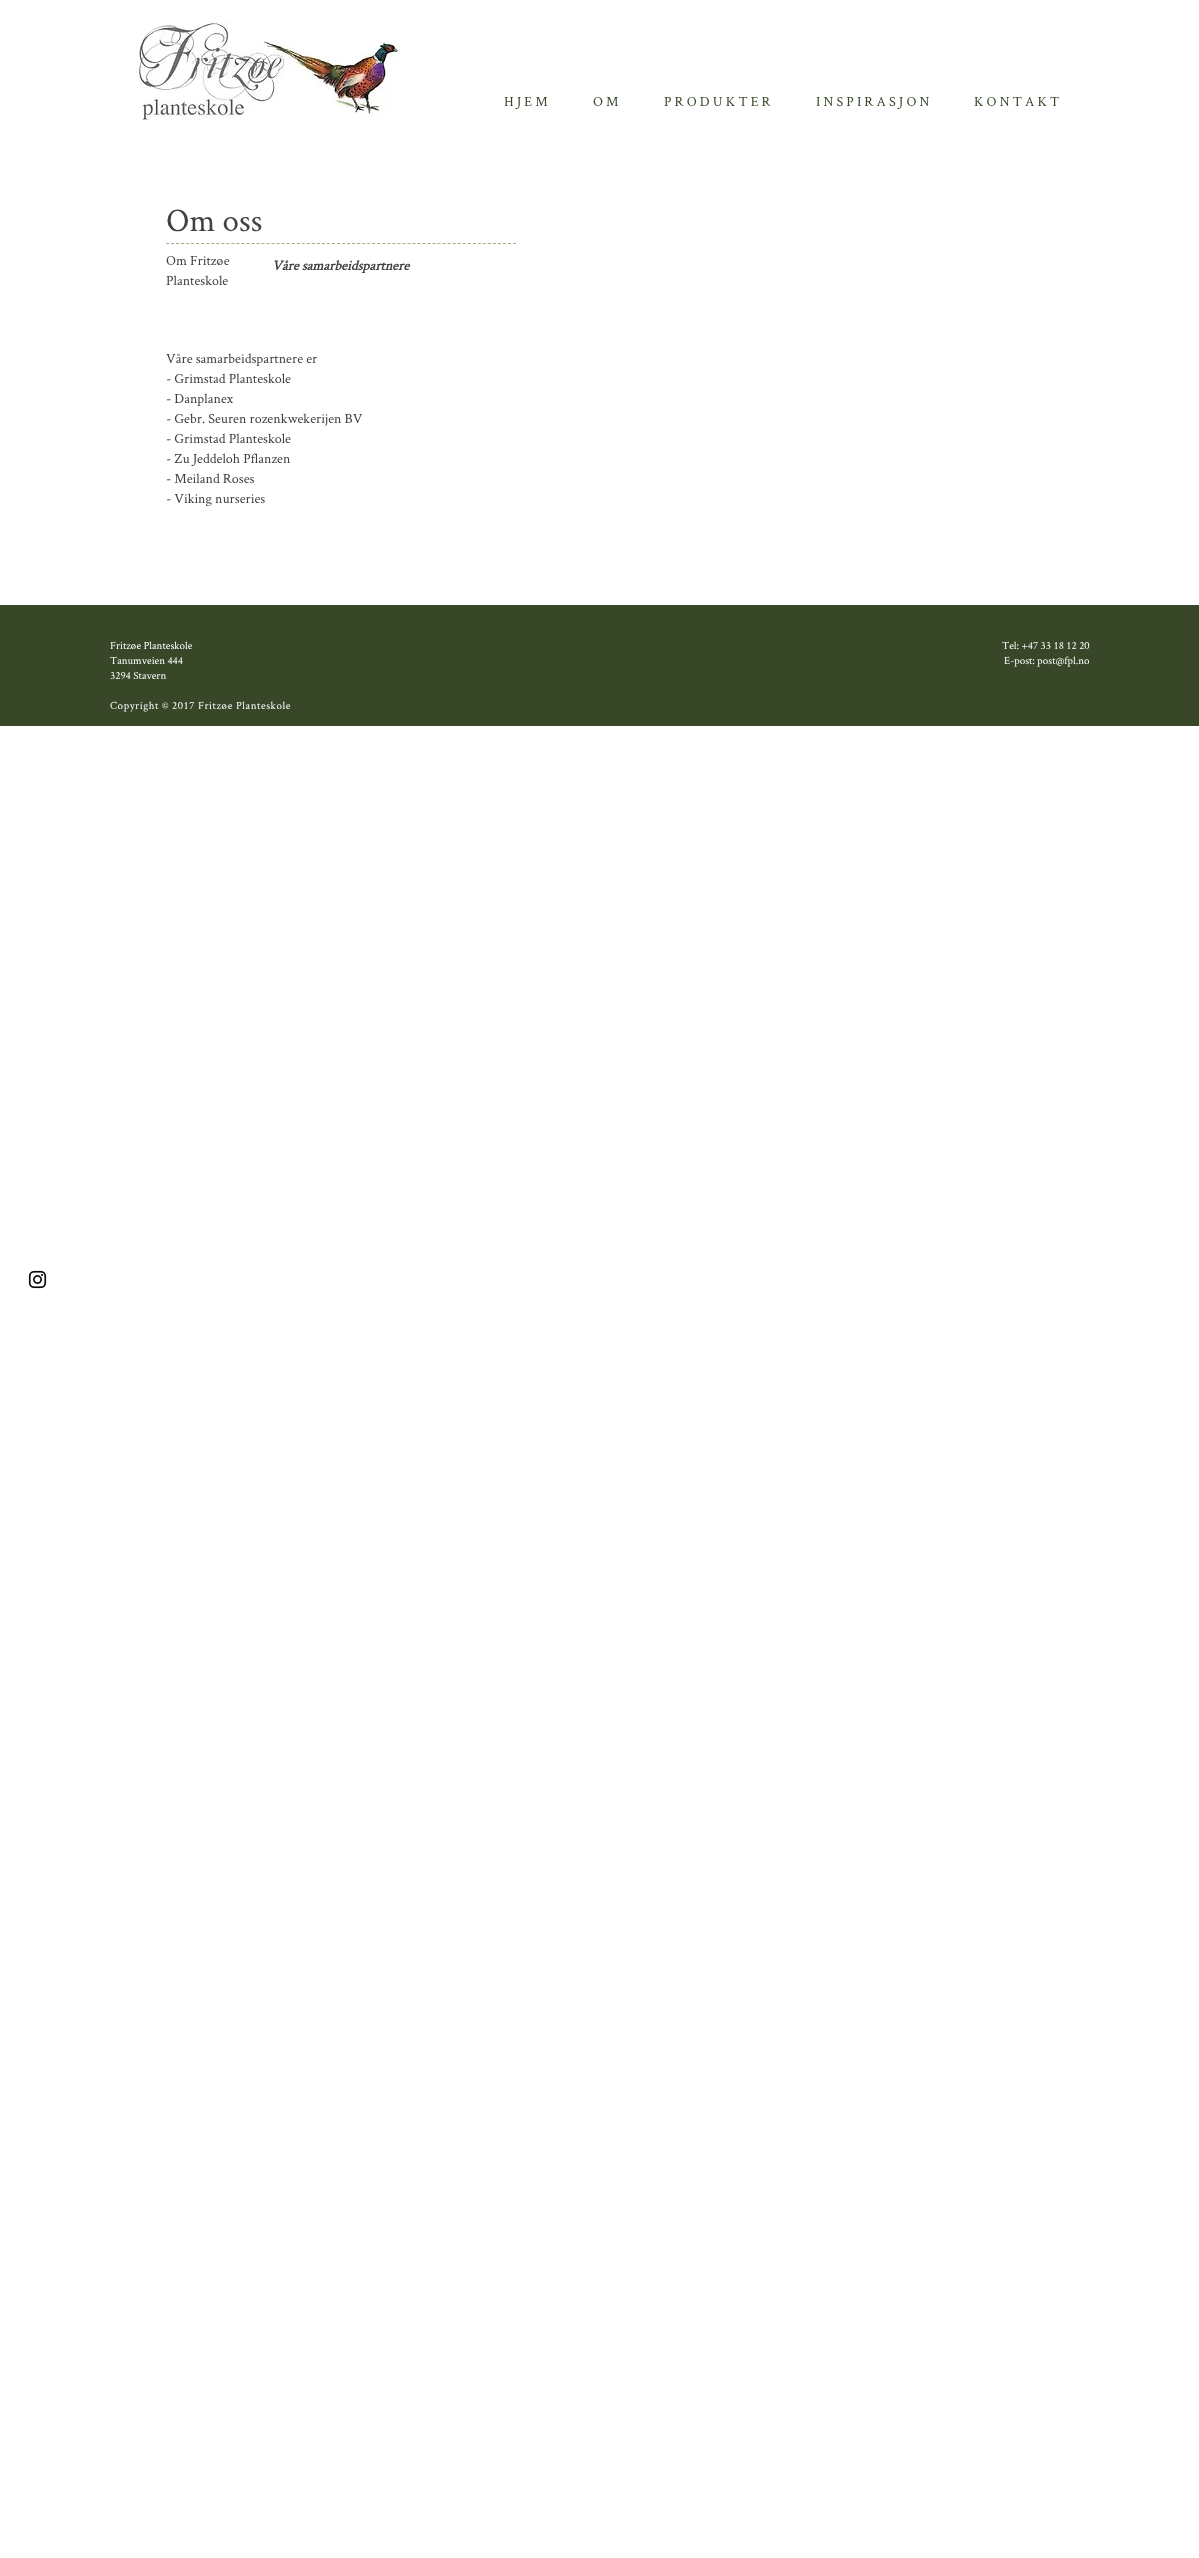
async function draw(canvas) {
	canvas.width = 1199;
	canvas.height = 2558;
	const c = canvas.getContext('2d');
	c.miterLimit = 4;
	c.fontKerning = 'normal';
	async function loadImage(src) {
		const img = new Image();
		img.src = src;
		await img.decode();
		return img;
	}

	c.fillStyle = '#fff';
	c.fillRect(0, 0, 1199, 2558);
	c.drawImage(await loadImage('img1.png'), 136, 21, 264, 99);
	c.font = '14px Crimson Text';
	c.fillStyle = '#384728';
	for (const [text, x, y] of [
		['H J E M', 504, 106],
		['O M', 593, 106],
		['P R O D U K T E R', 664, 106],
		['I N S P I R A S J O N', 816, 106],
		['K O N T A K T', 974, 106],
	]) {
		c.fillText(text, x, y);
	}
	c.font = '33px Crimson Text';
	c.fillStyle = '#404041';
	c.fillText('Om oss', 166, 231);
	c.beginPath();
	c.moveTo(166, 243.5);
	c.lineTo(516, 243.5);
	c.strokeStyle = '#a2ac87';
	c.setLineDash([3, 2.03]);
	c.stroke();
	c.font = '14px Crimson Text';
	c.fillText('Om Fritzøe', 166, 265);
	c.fillText('Planteskole', 166, 285);
	c.font = 'italic bold 14px Crimson Text';
	c.fillText('Våre samarbeidspartnere', 272, 270);
	c.font = '14px Crimson Text';
	for (const [text, x, y] of [
		['Våre samarbeidspartnere er', 166, 363],
		['- Grimstad Planteskole', 166, 383],
		['- Danplanex', 166, 403],
		['- Gebr. Seuren rozenkwekerijen BV', 166, 423],
		['- Grimstad Planteskole', 166, 443],
		['- Zu Jeddeloh Pflanzen', 166, 463],
		['- Meiland Roses', 166, 483],
		['- Viking nurseries', 166, 503],
	]) {
		c.fillText(text, x, y);
	}
	c.fillStyle = '#384728';
	c.fillRect(0, 605, 1199, 121);
	c.font = '11px Crimson Text';
	c.fillStyle = '#fff';
	for (const [text, x, y] of [
		['Fritzøe Planteskole', 110, 649],
		['Tanumveien 444', 110, 664],
		['3294 Stavern', 110, 679],
	]) {
		c.fillText(text, x, y);
	}
	c.letterSpacing = '0.55px';
	c.fillText('Copyright © 2017 Fritzøe Planteskole', 110, 709);
	c.letterSpacing = '0px';
	c.fillText('Tel: +47 33 18 12 20', 1002, 649);
	c.fillText('E-post: post@fpl.no', 1004, 664);
	c.drawImage(await loadImage('img2.png'), 28, 1270, 19, 19);
}

draw(document.querySelector('canvas'));
